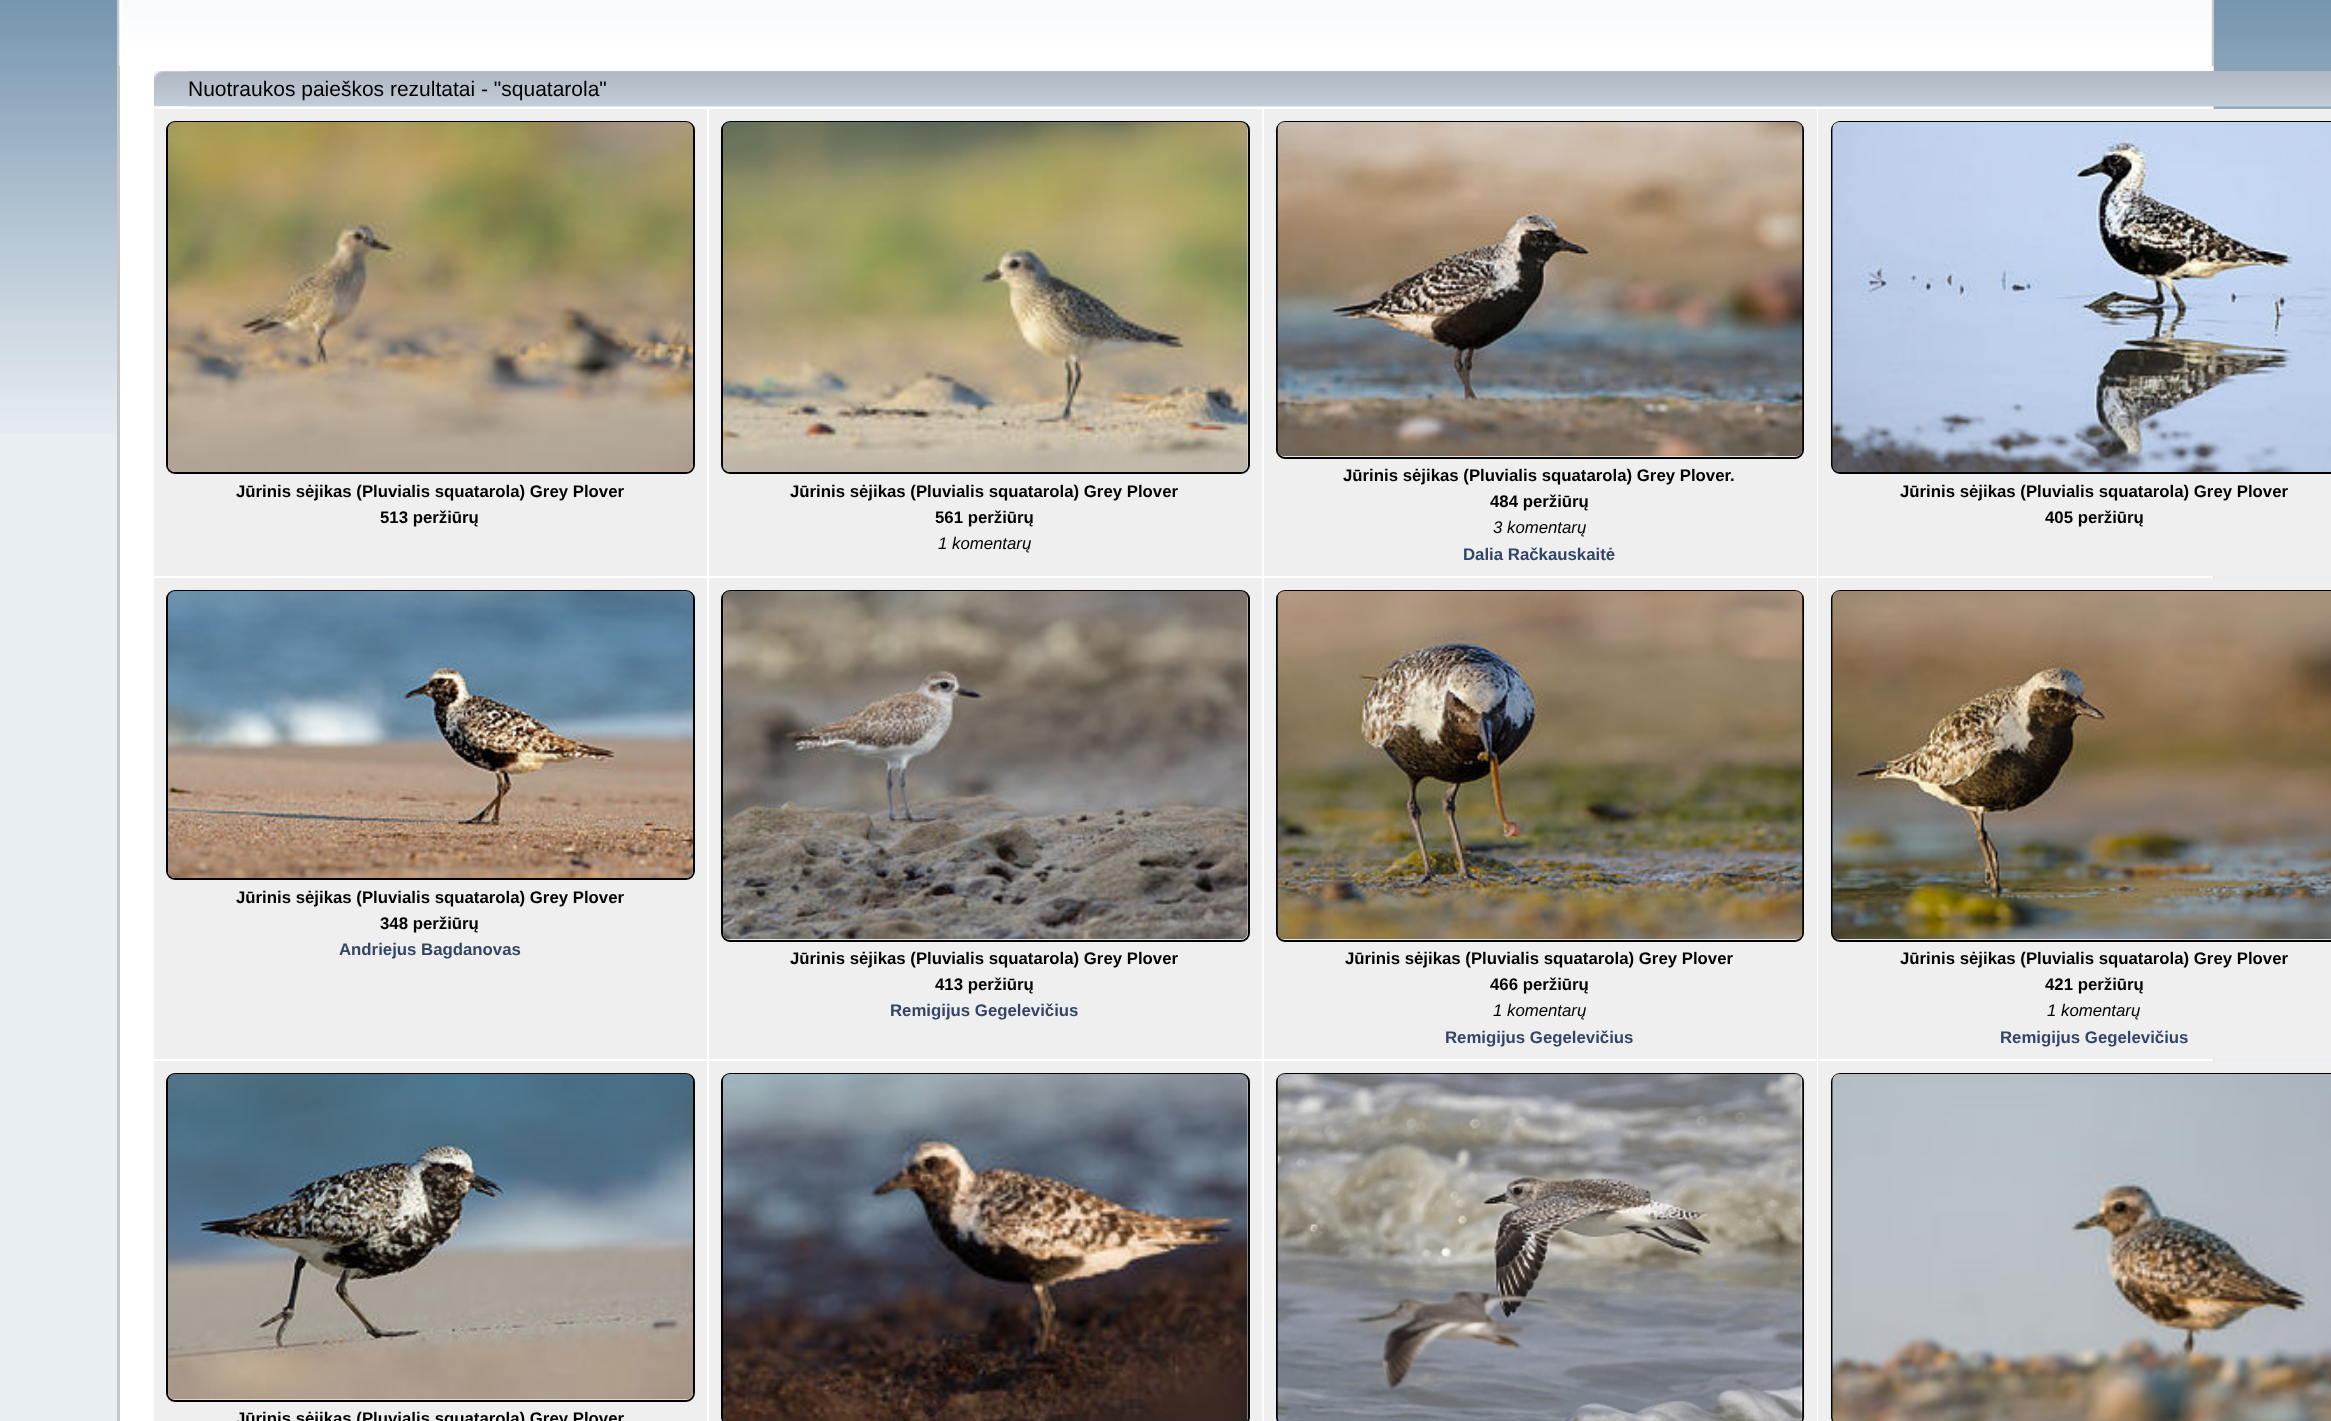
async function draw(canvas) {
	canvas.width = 2331;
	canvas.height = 1421;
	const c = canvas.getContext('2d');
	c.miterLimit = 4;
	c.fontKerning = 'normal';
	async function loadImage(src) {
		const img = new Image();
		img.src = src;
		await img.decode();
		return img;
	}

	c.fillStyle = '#e9eef2';
	c.fillRect(0, 0, 2331, 1421);
	c.drawImage(await loadImage('img1.png'), 0, 0, 2331, 433);
	c.fillStyle = '#fefefe';
	c.fillRect(117, 0, 2097, 67);
	c.drawImage(await loadImage('img2.png'), 117, 0, 2097, 66);
	c.drawImage(await loadImage('img3.png'), 2209, 0, 5, 66);
	for (const [x, y, w, h, color] of [
		[120, 67, 2093, 1354, '#fff'],
		[117, 66, 3, 1355, '#c6c6c6'],
		[2213, 66, 1, 995, '#e1e1e1'],
	]) {
		c.fillStyle = color;
		c.fillRect(x, y, w, h);
	}
	c.drawImage(await loadImage('img4.png'), 154, 71, 2177, 36);
	c.drawImage(await loadImage('img5.png'), 189, 71, 2142, 36);
	c.font = '21px Liberation Sans';
	c.fillStyle = '#000';
	c.fillText('Nuotraukos paieškos rezultatai - "squatarola"', 188, 96);
	c.fillStyle = '#efefef';
	c.fillRect(154, 109, 553, 467);
	c.beginPath();
	c.roundRect(167, 122, 527, 351, 8);
	c.strokeStyle = '#000';
	c.lineWidth = 2;
	c.stroke();
	c.drawImage(await loadImage('img6.png'), 168, 122, 525, 350);
	c.font = 'bold 16.8px Liberation Sans';
	c.fillStyle = '#000';
	c.fillText('Jūrinis sėjikas (Pluvialis squatarola) Grey Plover', 236, 497);
	c.fillText('513 peržiūrų', 380, 523);
	c.fillStyle = '#efefef';
	c.fillRect(709, 109, 553, 467);
	c.beginPath();
	c.roundRect(722, 122, 527, 351, 8);
	c.stroke();
	c.drawImage(await loadImage('img7.png'), 722, 122, 526, 350);
	c.fillStyle = '#000';
	c.fillText('Jūrinis sėjikas (Pluvialis squatarola) Grey Plover', 790, 497);
	c.fillText('561 peržiūrų', 935, 523);
	c.font = 'italic 16.8px Liberation Sans';
	c.fillText('1 komentarų', 938, 549);
	c.fillStyle = '#efefef';
	c.fillRect(1264, 109, 553, 467);
	c.beginPath();
	c.roundRect(1277, 122, 526, 336, 8);
	c.stroke();
	c.drawImage(await loadImage('img8.png'), 1277, 122, 526, 335);
	c.font = 'bold 16.8px Liberation Sans';
	c.fillStyle = '#000';
	c.fillText('Jūrinis sėjikas (Pluvialis squatarola) Grey Plover.', 1343, 481);
	c.fillText('484 peržiūrų', 1490, 507);
	c.font = 'italic 16.8px Liberation Sans';
	c.fillText('3 komentarų', 1493, 533);
	c.font = 'bold 16.8px Liberation Sans';
	c.fillStyle = '#346';
	c.fillText('Dalia Račkauskaitė', 1463, 560);
	c.fillStyle = '#efefef';
	c.fillRect(1818, 109, 513, 467);
	c.beginPath();
	c.roundRect(1832, 122, 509, 351, 8);
	c.stroke();
	c.drawImage(await loadImage('img9.png'), 1832, 122, 499, 350);
	c.fillStyle = '#000';
	c.fillText('Jūrinis sėjikas (Pluvialis squatarola) Grey Plover', 1900, 497);
	c.fillText('405 peržiūrų', 2045, 523);
	c.fillStyle = '#efefef';
	c.fillRect(154, 578, 553, 481);
	c.beginPath();
	c.roundRect(167, 591, 527, 288, 8);
	c.stroke();
	c.drawImage(await loadImage('img10.png'), 168, 591, 525, 287);
	c.fillStyle = '#000';
	c.fillText('Jūrinis sėjikas (Pluvialis squatarola) Grey Plover', 236, 903);
	c.fillText('348 peržiūrų', 380, 929);
	c.fillStyle = '#346';
	c.fillText('Andriejus Bagdanovas', 339, 955);
	c.fillStyle = '#efefef';
	c.fillRect(709, 578, 553, 481);
	c.beginPath();
	c.roundRect(722, 591, 527, 350, 8);
	c.stroke();
	c.drawImage(await loadImage('img11.png'), 722, 591, 526, 349);
	c.fillStyle = '#000';
	c.fillText('Jūrinis sėjikas (Pluvialis squatarola) Grey Plover', 790, 964);
	c.fillText('413 peržiūrų', 935, 990);
	c.fillStyle = '#346';
	c.fillText('Remigijus Gegelevičius', 890, 1016);
	c.fillStyle = '#efefef';
	c.fillRect(1264, 578, 553, 481);
	c.beginPath();
	c.roundRect(1277, 591, 526, 350, 8);
	c.stroke();
	c.drawImage(await loadImage('img12.png'), 1277, 591, 526, 349);
	c.fillStyle = '#000';
	c.fillText('Jūrinis sėjikas (Pluvialis squatarola) Grey Plover', 1345, 964);
	c.fillText('466 peržiūrų', 1490, 990);
	c.font = 'italic 16.8px Liberation Sans';
	c.fillText('1 komentarų', 1493, 1016);
	c.font = 'bold 16.8px Liberation Sans';
	c.fillStyle = '#346';
	c.fillText('Remigijus Gegelevičius', 1445, 1043);
	c.fillStyle = '#efefef';
	c.fillRect(1818, 578, 513, 481);
	c.beginPath();
	c.roundRect(1832, 591, 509, 350, 8);
	c.stroke();
	c.drawImage(await loadImage('img13.png'), 1832, 591, 499, 349);
	c.fillStyle = '#000';
	c.fillText('Jūrinis sėjikas (Pluvialis squatarola) Grey Plover', 1900, 964);
	c.fillText('421 peržiūrų', 2045, 990);
	c.font = 'italic 16.8px Liberation Sans';
	c.fillText('1 komentarų', 2047, 1016);
	c.font = 'bold 16.8px Liberation Sans';
	c.fillStyle = '#346';
	c.fillText('Remigijus Gegelevičius', 2000, 1043);
	c.fillStyle = '#efefef';
	c.fillRect(154, 1061, 553, 360);
	c.beginPath();
	c.roundRect(167, 1074, 527, 327, 8);
	c.stroke();
	c.drawImage(await loadImage('img14.png'), 168, 1074, 525, 326);
	c.fillStyle = '#000';
	c.fillText('Jūrinis sėjikas (Pluvialis squatarola) Grey Plover', 236, 1424);
	c.fillStyle = '#efefef';
	c.fillRect(709, 1061, 553, 360);
	c.beginPath();
	c.roundRect(722, 1074, 527, 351, 8);
	c.stroke();
	c.drawImage(await loadImage('img15.png'), 722, 1074, 526, 347);
	c.fillRect(1264, 1061, 553, 360);
	c.beginPath();
	c.roundRect(1277, 1074, 526, 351, 8);
	c.stroke();
	c.drawImage(await loadImage('img16.png'), 1277, 1074, 526, 347);
	c.fillRect(1818, 1061, 513, 360);
	c.beginPath();
	c.roundRect(1832, 1074, 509, 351, 8);
	c.stroke();
	c.drawImage(await loadImage('img17.png'), 1832, 1074, 499, 347);
}

draw(document.querySelector('canvas'));
